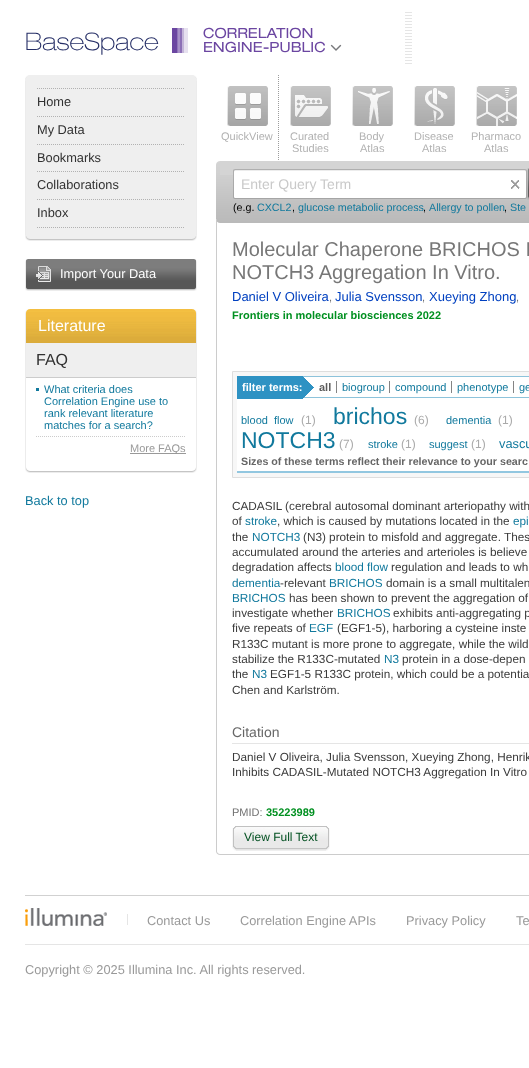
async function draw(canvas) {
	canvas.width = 529;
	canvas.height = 1068;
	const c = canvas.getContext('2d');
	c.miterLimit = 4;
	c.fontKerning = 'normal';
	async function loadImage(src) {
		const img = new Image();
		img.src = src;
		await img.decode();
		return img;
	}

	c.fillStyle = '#fff';
	c.fillRect(0, 0, 529, 1068);
	c.font = '100 24px Helvetica Neue';
	c.fillStyle = '#252e66';
	c.fillText('BaseSpace', 25, 50);
	c.drawImage(await loadImage('img1.png'), 405, 12, 7, 52);
	for (const [x, y, w, h, color] of [
		[172, 28, 5, 25, '#6b46a1'],
		[177, 28, 1, 25, '#9074b9'],
		[178, 28, 2, 25, '#a690c7'],
		[180, 28, 2, 25, '#8c6fb6'],
		[182, 28, 2, 25, '#c4b5d9'],
		[184, 28, 4, 25, '#e6e0ef'],
	]) {
		c.fillStyle = color;
		c.fillRect(x, y, w, h);
	}
	c.font = '14px Helvetica Neue';
	c.fillStyle = '#6b46a1';
	c.fillText('CORRELATION', 203, 38);
	c.fillText('ENGINE-PUBLIC', 203, 52);
	c.drawImage(await loadImage('img2.png'), 330, 44, 12, 7);
	c.fillStyle = '#efefef';
	c.fillRect(25, 78, 172, 158);
	c.drawImage(await loadImage('img3.png'), 25, 75, 172, 3);
	c.fillStyle = '#ececec';
	c.fillRect(196, 81, 1, 154);
	c.fillRect(25, 81, 1, 154);
	c.beginPath();
	c.moveTo(37, 88.5);
	c.lineTo(185, 88.5);
	c.strokeStyle = '#b2b2b2';
	c.setLineDash([1, 1]);
	c.stroke();
	c.beginPath();
	c.moveTo(37, 116.5);
	c.lineTo(185, 116.5);
	c.stroke();
	c.font = '12.8px Liberation Sans';
	c.fillStyle = '#313131';
	c.fillText('Home', 37, 106);
	c.beginPath();
	c.moveTo(37, 144.5);
	c.lineTo(185, 144.5);
	c.stroke();
	c.fillText('My Data', 37, 134);
	c.beginPath();
	c.moveTo(37, 171.5);
	c.lineTo(185, 171.5);
	c.stroke();
	c.fillText('Bookmarks', 37, 162);
	c.beginPath();
	c.moveTo(37, 199.5);
	c.lineTo(185, 199.5);
	c.stroke();
	c.fillText('Collaborations', 37, 189);
	c.beginPath();
	c.moveTo(37, 227.5);
	c.lineTo(185, 227.5);
	c.stroke();
	c.fillText('Inbox', 37, 217);
	c.drawImage(await loadImage('img4.png'), 25, 236, 172, 5);
	c.drawImage(await loadImage('img5.png'), 25, 259, 172, 32);
	c.fillStyle = '#fff';
	c.fillText('Import Your Data', 60, 278);
	c.drawImage(await loadImage('img6.png'), 25, 309, 172, 34);
	c.font = '16px Liberation Sans';
	c.fillText('Literature', 38, 331);
	for (const [x, y, w, h, color] of [
		[196, 343, 1, 124, '#ececec'],
		[25, 343, 1, 124, '#ececec'],
		[26, 343, 170, 34, '#efefef'],
		[26, 377, 170, 1, '#ccc'],
	]) {
		c.fillStyle = color;
		c.fillRect(x, y, w, h);
	}
	c.fillStyle = '#313131';
	c.fillText('FAQ', 36, 365);
	c.fillStyle = '#11799d';
	c.fillRect(36, 388, 3, 3);
	c.beginPath();
	c.moveTo(36, 436.5);
	c.lineTo(186, 436.5);
	c.strokeStyle = '#ccc';
	c.stroke();
	c.font = '11px Liberation Sans';
	for (const [text, x, y] of [
		['What criteria does', 44, 393],
		['Correlation Engine use to', 44, 405],
		['rank relevant literature', 44, 417],
		['matches for a search?', 44, 429],
	]) {
		c.fillText(text, x, y);
	}
	c.fillStyle = '#999';
	c.fillRect(130, 453, 56, 1);
	c.fillText('More FAQs', 130, 452);
	c.drawImage(await loadImage('img7.png'), 25, 467, 5, 6);
	c.drawImage(await loadImage('img8.png'), 192, 467, 5, 6);
	c.fillStyle = '#c5c5c5';
	c.fillRect(30, 471, 162, 1);
	c.fillStyle = '#ececec';
	c.fillRect(30, 472, 162, 1);
	c.font = '12.8px Liberation Sans';
	c.fillStyle = '#11799d';
	c.fillText('Back to top', 25, 505);
	c.drawImage(await loadImage('img9.png'), 227, 86, 40, 40);
	c.drawImage(await loadImage('img10.png'), 228, 86, 40, 40);
	c.font = '11px Liberation Sans';
	c.fillStyle = '#b2b2b2';
	c.fillText('QuickView', 221, 140);
	c.beginPath();
	c.moveTo(278.5, 75);
	c.lineTo(278.5, 161);
	c.strokeStyle = '#9c9c9c';
	c.stroke();
	c.drawImage(await loadImage('img9.png'), 290, 86, 40, 40);
	c.drawImage(await loadImage('img11.png'), 291, 86, 40, 40);
	c.fillText('Curated', 290, 140);
	c.fillText('Studies', 292, 152);
	c.drawImage(await loadImage('img9.png'), 352, 86, 40, 40);
	c.drawImage(await loadImage('img12.png'), 353, 86, 40, 40);
	c.fillText('Body', 359, 140);
	c.fillText('Atlas', 360, 152);
	c.drawImage(await loadImage('img9.png'), 414, 86, 40, 40);
	c.drawImage(await loadImage('img13.png'), 415, 86, 40, 40);
	c.fillText('Disease', 414, 140);
	c.fillText('Atlas', 422, 152);
	c.drawImage(await loadImage('img9.png'), 476, 86, 40, 40);
	c.drawImage(await loadImage('img14.png'), 477, 86, 40, 40);
	c.fillText('Pharmaco', 471, 140);
	c.fillText('Atlas', 484, 152);
	c.fillStyle = '#d4d4d4';
	c.fillRect(220, 161, 309, 14);
	c.drawImage(await loadImage('img15.png'), 220, 175, 309, 48);
	c.drawImage(await loadImage('img16.png'), 216, 161, 4, 62);
	c.drawImage(await loadImage('img17.png'), 233, 169, 294, 30);
	c.font = '14px Liberation Sans';
	c.fillStyle = '#c9c9c9';
	c.fillText('Enter Query Term', 241, 189);
	c.drawImage(await loadImage('img18.png'), 511, 180, 9, 9);
	c.drawImage(await loadImage('img19.png'), 527, 168, 2, 32);
	c.font = '10.7px Liberation Sans';
	c.fillStyle = '#000';
	c.fillText('(e.g.', 233, 211);
	c.fillStyle = '#11799d';
	c.fillText('CXCL2', 257, 211);
	c.fillStyle = '#000';
	c.fillText(',', 292, 211);
	c.fillStyle = '#11799d';
	c.fillText('glucose metabolic process', 298, 211);
	c.fillStyle = '#000';
	c.fillText(',', 423, 211);
	c.fillStyle = '#11799d';
	c.fillText('Allergy to pollen', 429, 211);
	c.fillStyle = '#000';
	c.fillText(',', 504, 211);
	c.fillStyle = '#11799d';
	c.fillText('Ste', 510, 211);
	c.fillStyle = '#ccc';
	c.fillRect(216, 219, 1, 632);
	c.font = '20px Liberation Sans';
	c.fillStyle = '#777';
	c.fillText('Molecular Chaperone BRICHOS I', 232, 256);
	c.fillText('NOTCH3 Aggregation In Vitro.', 232, 279);
	c.font = '13px Liberation Sans';
	c.fillStyle = '#0040c0';
	c.fillText('Daniel V Oliveira', 232, 301);
	c.font = '11px Liberation Sans';
	c.fillStyle = '#707070';
	c.fillText(',', 329, 301);
	c.font = '13px Liberation Sans';
	c.fillStyle = '#0040c0';
	c.fillText('Julia Svensson', 335, 301);
	c.font = '11px Liberation Sans';
	c.fillStyle = '#707070';
	c.fillText(',', 422, 301);
	c.font = '13px Liberation Sans';
	c.fillStyle = '#0040c0';
	c.fillText('Xueying Zhong', 429, 301);
	c.font = '11px Liberation Sans';
	c.fillStyle = '#707070';
	c.fillText(',', 516, 301);
	c.font = 'bold 11px Liberation Sans';
	c.fillStyle = '#009020';
	c.fillText('Frontiers in molecular biosciences 2022', 232, 319);
	c.fillStyle = '#f7f7f7';
	c.beginPath();
	c.rect(232.5, 371.5, 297, 106);
	c.fill();
	c.strokeStyle = '#dedede';
	c.setLineDash([]);
	c.stroke();
	c.fillStyle = '#fff';
	c.fillRect(304, 377, 225, 20);
	c.strokeStyle = '#8dc3db';
	c.strokeRect(237.5, 376.5, 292, 21);
	c.fillRect(237, 398, 292, 73);
	c.drawImage(await loadImage('img20.png'), 302, 376, 12, 23);
	c.fillStyle = '#2e92c3';
	c.fillRect(237, 376, 65, 23);
	c.fillStyle = '#fff';
	c.fillText('filter terms:', 242, 391);
	c.fillStyle = '#848484';
	c.fillRect(336, 381, 1, 12);
	c.fillStyle = '#5c5c5c';
	c.fillText('all', 319, 391);
	c.fillStyle = '#848484';
	c.fillRect(389, 381, 1, 12);
	c.font = '11px Liberation Sans';
	c.fillStyle = '#11799d';
	c.fillText('biogroup', 342, 391);
	c.fillStyle = '#848484';
	c.fillRect(451, 381, 1, 12);
	c.fillStyle = '#11799d';
	c.fillText('compound', 395, 391);
	c.fillStyle = '#848484';
	c.fillRect(513, 381, 1, 12);
	c.fillStyle = '#11799d';
	c.fillText('phenotype', 457, 391);
	c.fillText('ge', 519, 391);
	c.fillStyle = '#92c7e0';
	c.fillRect(237, 471, 292, 2);
	c.fillStyle = '#11799d';
	c.fillText('blood', 241, 424);
	c.fillText('flow', 274, 424);
	c.font = '12px Liberation Sans';
	c.fillStyle = '#aaa';
	c.fillText('(1)', 301, 424);
	c.font = '23px Liberation Sans';
	c.fillStyle = '#11799d';
	c.fillText('brichos', 333, 424);
	c.font = '12px Liberation Sans';
	c.fillStyle = '#aaa';
	c.fillText('(6)', 414, 424);
	c.font = '11px Liberation Sans';
	c.fillStyle = '#11799d';
	c.fillText('dementia', 446, 424);
	c.font = '12px Liberation Sans';
	c.fillStyle = '#aaa';
	c.fillText('(1)', 498, 424);
	c.font = '23px Liberation Sans';
	c.fillStyle = '#11799d';
	c.fillText('NOTCH3', 241, 448);
	c.font = '12px Liberation Sans';
	c.fillStyle = '#aaa';
	c.fillText('(7)', 339, 448);
	c.font = '11px Liberation Sans';
	c.fillStyle = '#11799d';
	c.fillText('stroke', 368, 448);
	c.font = '12px Liberation Sans';
	c.fillStyle = '#aaa';
	c.fillText('(1)', 401, 448);
	c.font = '11px Liberation Sans';
	c.fillStyle = '#11799d';
	c.fillText('suggest', 429, 448);
	c.font = '12px Liberation Sans';
	c.fillStyle = '#aaa';
	c.fillText('(1)', 471, 448);
	c.font = '12.8px Liberation Sans';
	c.fillStyle = '#11799d';
	c.fillText('vascu', 499, 448);
	c.font = 'bold 10.7px Liberation Sans';
	c.fillStyle = '#666';
	c.fillText('Sizes of these terms reflect their relevance to your searc', 241, 465);
	c.font = '11.75px Liberation Sans';
	c.fillStyle = '#3b3b3b';
	c.fillText('CADASIL (cerebral autosomal dominant arteriopathy with', 232, 510);
	c.fillText('of', 232, 525);
	c.fillStyle = '#11799d';
	c.fillText('stroke', 245, 525);
	c.fillStyle = '#3b3b3b';
	c.fillText(', which is caused by mutations located in the', 277, 525);
	c.fillStyle = '#11799d';
	c.fillText('epi', 513, 525);
	c.fillStyle = '#3b3b3b';
	c.fillText('the', 232, 541);
	c.fillStyle = '#11799d';
	c.fillText('NOTCH3', 252, 541);
	c.fillStyle = '#3b3b3b';
	for (const [text, x, y] of [
		['(N3) protein to misfold and aggregate. Thes', 303, 541],
		['accumulated around the arteries and arterioles is believe', 232, 556],
		['degradation affects', 232, 571],
	]) {
		c.fillText(text, x, y);
	}
	c.fillStyle = '#11799d';
	c.fillText('blood flow', 335, 571);
	c.fillStyle = '#3b3b3b';
	c.fillText('regulation and leads to wh', 391, 571);
	c.fillStyle = '#11799d';
	c.fillText('dementia', 232, 587);
	c.fillStyle = '#3b3b3b';
	c.fillText('-relevant', 280, 587);
	c.fillStyle = '#11799d';
	c.fillText('BRICHOS', 329, 587);
	c.fillStyle = '#3b3b3b';
	c.fillText('domain is a small multitalen', 386, 587);
	c.fillStyle = '#11799d';
	c.fillText('BRICHOS', 232, 602);
	c.fillStyle = '#3b3b3b';
	c.fillText('has been shown to prevent the aggregation of', 289, 602);
	c.fillText('investigate whether', 232, 617);
	c.fillStyle = '#11799d';
	c.fillText('BRICHOS', 337, 617);
	c.fillStyle = '#3b3b3b';
	c.fillText('exhibits anti-aggregating p', 393, 617);
	c.fillText('five repeats of', 232, 632);
	c.fillStyle = '#11799d';
	c.fillText('EGF', 309, 632);
	c.fillStyle = '#3b3b3b';
	for (const [text, x, y] of [
		['(EGF1-5), harboring a cysteine inste', 337, 632],
		['R133C mutant is more prone to aggregate, while the wild', 232, 648],
		['stabilize the R133C-mutated', 232, 663],
	]) {
		c.fillText(text, x, y);
	}
	c.fillStyle = '#11799d';
	c.fillText('N3', 384, 663);
	c.fillStyle = '#3b3b3b';
	c.fillText('protein in a dose-depen', 402, 663);
	c.fillText('the', 232, 678);
	c.fillStyle = '#11799d';
	c.fillText('N3', 252, 678);
	c.fillStyle = '#3b3b3b';
	c.fillText('EGF1-5 R133C protein, which could be a potentia', 270, 678);
	c.fillText('Chen and Karlström.', 232, 694);
	c.fillStyle = '#e5e5e5';
	c.fillRect(232, 743, 297, 1);
	c.font = '14px Liberation Sans';
	c.fillStyle = '#666';
	c.fillText('Citation', 232, 737);
	c.font = '11.75px Liberation Sans';
	c.fillStyle = '#3b3b3b';
	c.fillText('Daniel V Oliveira, Julia Svensson, Xueying Zhong, Henrik', 232, 761);
	c.fillText('Inhibits CADASIL-Mutated NOTCH3 Aggregation In Vitro', 232, 776);
	c.font = '11px Liberation Sans';
	c.fillStyle = '#707070';
	c.fillText('PMID:', 232, 816);
	c.font = 'bold 11px Liberation Sans';
	c.fillStyle = '#009020';
	c.fillText('35223989', 266, 816);
	c.fillStyle = '#efefef';
	c.fillRect(256, 850, 50, 1);
	c.drawImage(await loadImage('img21.png'), 232, 826, 24, 25);
	c.drawImage(await loadImage('img22.png'), 306, 826, 24, 25);
	c.drawImage(await loadImage('img23.png'), 244, 826, 62, 24);
	c.font = '12px Liberation Sans';
	c.fillStyle = '#005020';
	c.fillText('View Full Text', 244, 841);
	c.drawImage(await loadImage('img24.png'), 216, 851, 4, 4);
	c.fillStyle = '#ccc';
	c.fillRect(220, 854, 309, 1);
	c.fillStyle = '#d1d1d1';
	c.fillRect(25, 895, 504, 1);
	c.drawImage(await loadImage('img25.png'), 25, 908, 82, 18);
	c.fillStyle = '#e5e5e5';
	c.fillRect(127, 914, 1, 11);
	c.font = '12.8px Liberation Sans';
	c.fillStyle = '#999';
	for (const [text, x, y] of [
		['Contact Us', 147, 925],
		['Correlation Engine APIs', 240, 925],
		['Privacy Policy', 406, 925],
		['Te', 516, 925],
	]) {
		c.fillText(text, x, y);
	}
	c.fillStyle = '#e5e5e5';
	c.fillRect(25, 944, 504, 1);
	c.fillStyle = '#999';
	c.fillText('Copyright © 2025 Illumina Inc. All rights reserved.', 25, 974);
}

draw(document.querySelector('canvas'));
